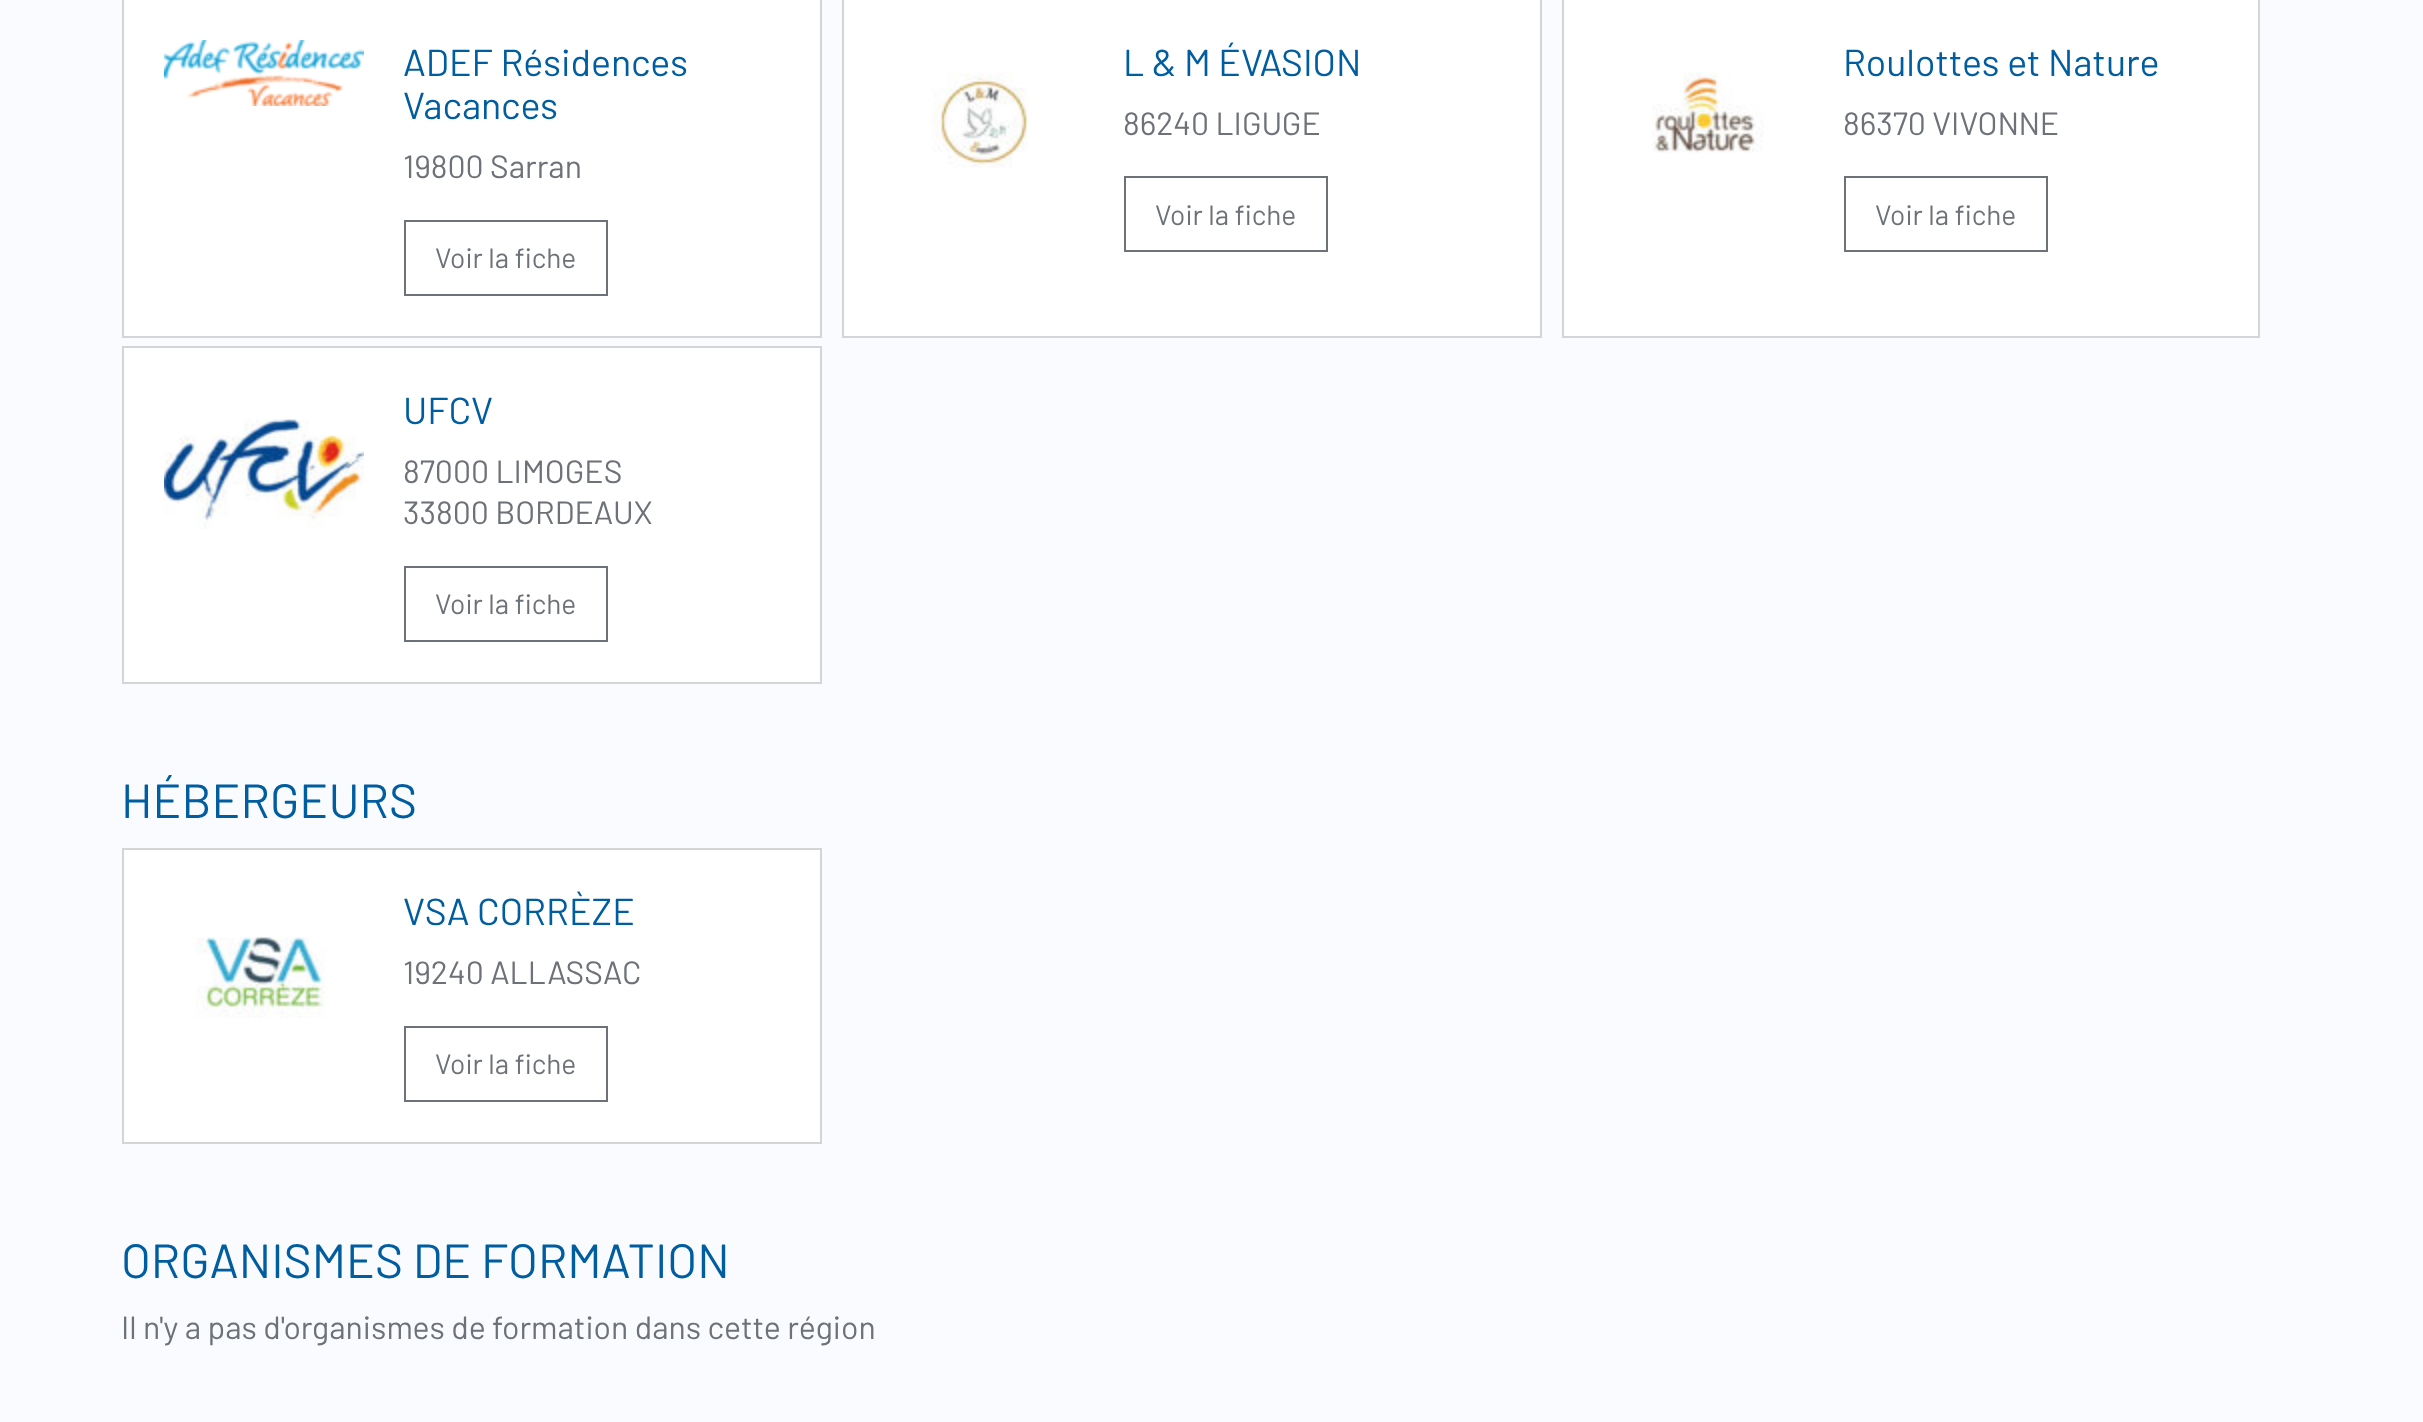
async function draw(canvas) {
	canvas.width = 2423;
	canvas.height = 1422;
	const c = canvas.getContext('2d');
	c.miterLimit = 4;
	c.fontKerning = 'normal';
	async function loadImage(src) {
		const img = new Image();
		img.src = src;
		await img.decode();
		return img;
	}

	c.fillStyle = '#f9fbff';
	c.fillRect(0, 0, 2423, 1422);
	c.fillStyle = '#fff';
	c.beginPath();
	c.rect(123, -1, 698, 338);
	c.fill();
	c.strokeStyle = '#d3d5d7';
	c.lineWidth = 2;
	c.stroke();
	c.drawImage(await loadImage('img1.png'), 164, 40, 200, 66);
	c.font = '37.5px Barlow';
	c.fillStyle = '#005d9f';
	c.fillText('ADEF Résidences', 403, 76);
	c.fillText('Vacances', 403, 119);
	c.font = '32px Barlow';
	c.fillStyle = '#6d7278';
	c.fillText('19800 Sarran', 403, 178);
	c.strokeStyle = '#6d7278';
	c.strokeRect(405, 221, 202, 74);
	c.font = '28px Barlow';
	c.fillText('Voir la fiche', 435, 268);
	c.fillStyle = '#fff';
	c.beginPath();
	c.rect(843, -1, 698, 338);
	c.fill();
	c.strokeStyle = '#d3d5d7';
	c.stroke();
	c.font = '37.5px Barlow';
	c.fillStyle = '#005d9f';
	c.fillText('L & M ÉVASION', 1123, 76);
	c.drawImage(await loadImage('img2.png'), 932, 72, 96, 96);
	c.font = '32px Barlow';
	c.fillStyle = '#6d7278';
	c.fillText('86240 LIGUGE', 1123, 135);
	c.strokeStyle = '#6d7278';
	c.strokeRect(1125, 177, 202, 74);
	c.font = '28px Barlow';
	c.fillText('Voir la fiche', 1155, 225);
	c.fillStyle = '#fff';
	c.beginPath();
	c.rect(1563, -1, 696, 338);
	c.fill();
	c.strokeStyle = '#d3d5d7';
	c.stroke();
	c.font = '37.5px Barlow';
	c.fillStyle = '#005d9f';
	c.fillText('Roulottes et Nature', 1843, 76);
	c.drawImage(await loadImage('img3.png'), 1652, 72, 112, 81);
	c.font = '32px Barlow';
	c.fillStyle = '#6d7278';
	c.fillText('86370 VIVONNE', 1843, 135);
	c.strokeStyle = '#6d7278';
	c.strokeRect(1845, 177, 202, 74);
	c.font = '28px Barlow';
	c.fillText('Voir la fiche', 1875, 225);
	c.fillStyle = '#fff';
	c.beginPath();
	c.rect(123, 347, 698, 336);
	c.fill();
	c.strokeStyle = '#d3d5d7';
	c.stroke();
	c.font = '37.5px Barlow';
	c.fillStyle = '#005d9f';
	c.fillText('UFCV', 403, 424);
	c.drawImage(await loadImage('img4.png'), 164, 419, 200, 110);
	c.font = '32px Barlow';
	c.fillStyle = '#6d7278';
	c.fillText('87000 LIMOGES', 403, 483);
	c.fillText('33800 BORDEAUX', 403, 524);
	c.strokeStyle = '#6d7278';
	c.strokeRect(405, 567, 202, 74);
	c.font = '28px Barlow';
	c.fillText('Voir la fiche', 435, 614);
	c.font = '48px Barlow';
	c.fillStyle = '#005d9f';
	c.fillText('HÉBERGEURS', 121, 818);
	c.fillStyle = '#fff';
	c.beginPath();
	c.rect(123, 849, 698, 294);
	c.fill();
	c.strokeStyle = '#d3d5d7';
	c.stroke();
	c.font = '37.5px Barlow';
	c.fillStyle = '#005d9f';
	c.fillText('VSA CORRÈZE', 403, 925);
	c.drawImage(await loadImage('img5.png'), 195, 936, 130, 82);
	c.font = '32px Barlow';
	c.fillStyle = '#6d7278';
	c.fillText('19240 ALLASSAC', 403, 984);
	c.strokeStyle = '#6d7278';
	c.strokeRect(405, 1027, 202, 74);
	c.font = '28px Barlow';
	c.fillText('Voir la fiche', 435, 1074);
	c.font = '48px Barlow';
	c.fillStyle = '#005d9f';
	c.fillText('ORGANISMES DE FORMATION', 121, 1278);
	c.font = '32px Barlow';
	c.fillStyle = '#6d7278';
	c.fillText('Il n\'y a pas d\'organismes de formation dans cette région', 121, 1339);
}

draw(document.querySelector('canvas'));
